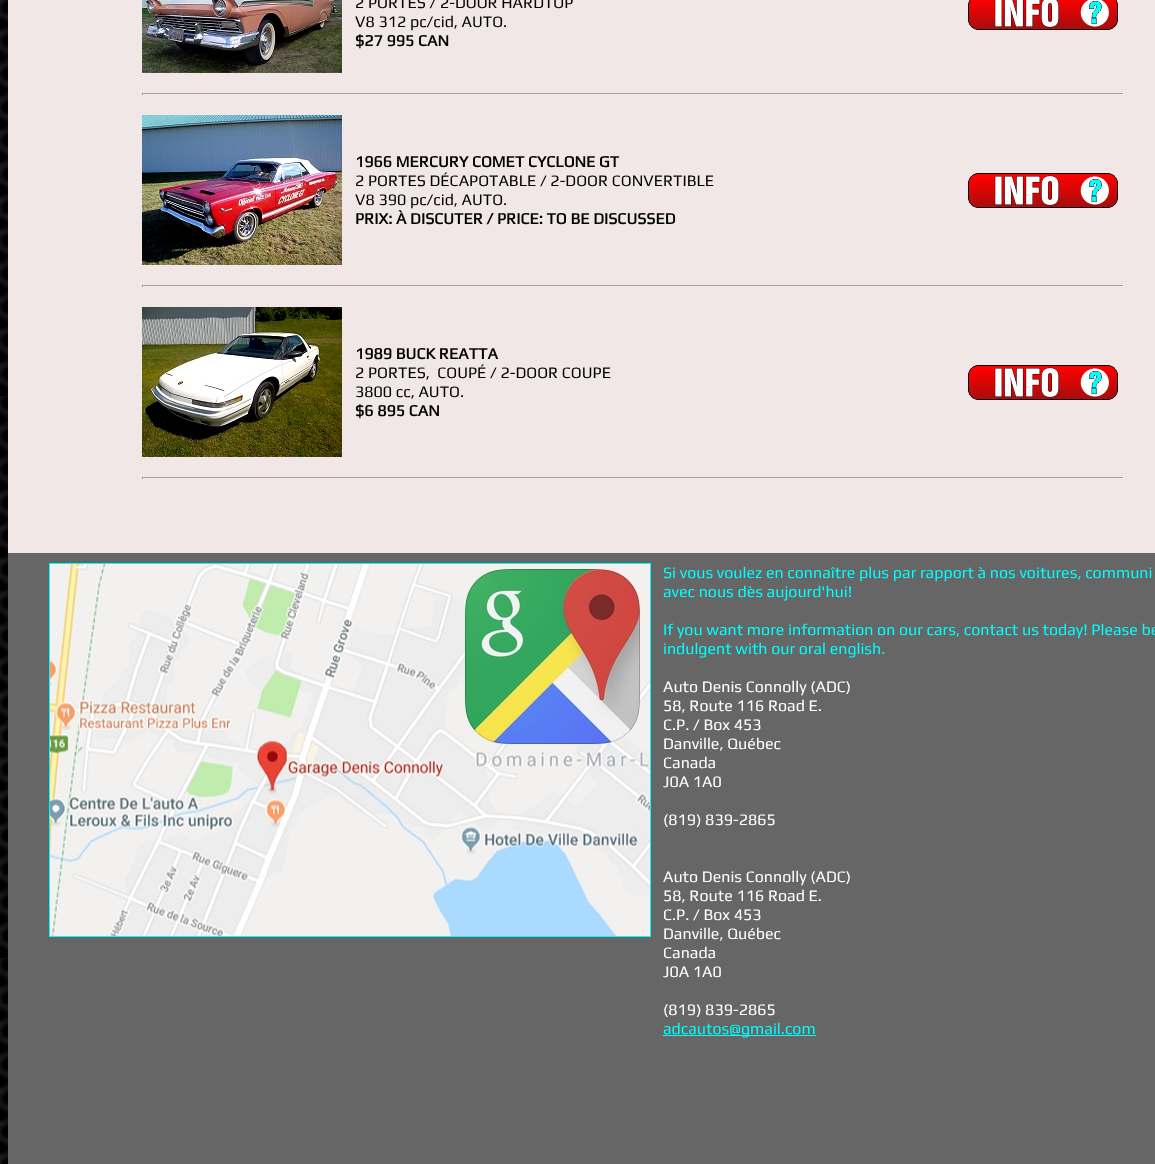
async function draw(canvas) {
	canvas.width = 1155;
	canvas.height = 1164;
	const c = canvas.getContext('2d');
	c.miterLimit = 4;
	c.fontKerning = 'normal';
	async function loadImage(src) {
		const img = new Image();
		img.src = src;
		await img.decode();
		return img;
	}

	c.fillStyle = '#fff';
	c.fillRect(0, 0, 1155, 1164);
	c.drawImage(await loadImage('img1.png'), 0, 0, 8, 1164);
	c.fillStyle = '#f1e7e7';
	c.fillRect(8, 0, 1147, 553);
	c.drawImage(await loadImage('img2.png'), 142, 0, 200, 73);
	c.font = '16px Play';
	c.fillStyle = '#000';
	c.fillText('2 PORTES / 2-DOOR HARDTOP', 355, 8);
	c.fillText('V8 312 pc/cid, AUTO.', 355, 27);
	c.font = 'bold 16px Play';
	c.fillText('$27 995 CAN', 355, 46);
	c.drawImage(await loadImage('img3.png'), 968, 0, 150, 30);
	for (const [x, y, w, h, color] of [
		[142, 93, 982, 1, '#9f9f9f'],
		[1123, 93, 1, 2, '#eee'],
		[142, 94, 982, 1, '#eee'],
		[142, 93, 1, 2, '#9f9f9f'],
	]) {
		c.fillStyle = color;
		c.fillRect(x, y, w, h);
	}
	c.drawImage(await loadImage('img4.png'), 142, 115, 200, 150);
	c.fillStyle = '#000';
	c.fillText('1966 MERCURY COMET CYCLONE GT', 355, 167);
	c.font = '16px Play';
	c.fillText('2 PORTES DÉCAPOTABLE / 2-DOOR CONVERTIBLE', 355, 186);
	c.fillText('V8 390 pc/cid, AUTO.', 355, 205);
	c.font = 'bold 16px Play';
	c.fillText('PRIX: À DISCUTER / PRICE: TO BE DISCUSSED', 355, 224);
	c.drawImage(await loadImage('img5.png'), 968, 173, 150, 35);
	for (const [x, y, w, h, color] of [
		[142, 285, 982, 1, '#9f9f9f'],
		[1123, 285, 1, 2, '#eee'],
		[142, 286, 982, 1, '#eee'],
		[142, 285, 1, 2, '#9f9f9f'],
	]) {
		c.fillStyle = color;
		c.fillRect(x, y, w, h);
	}
	c.drawImage(await loadImage('img6.png'), 142, 307, 200, 150);
	c.fillStyle = '#000';
	c.fillText('1989 BUCK REATTA', 355, 359);
	c.font = '16px Play';
	c.fillText('2 PORTES,  COUPÉ / 2-DOOR COUPE', 355, 378);
	c.fillText('3800 cc, AUTO.', 355, 397);
	c.font = 'bold 16px Play';
	c.fillText('$6 895 CAN', 355, 416);
	c.drawImage(await loadImage('img5.png'), 968, 365, 150, 35);
	for (const [x, y, w, h, color] of [
		[142, 477, 982, 1, '#9f9f9f'],
		[1123, 477, 1, 2, '#eee'],
		[142, 478, 982, 1, '#eee'],
		[142, 477, 1, 2, '#9f9f9f'],
		[8, 553, 1147, 611, '#666'],
	]) {
		c.fillStyle = color;
		c.fillRect(x, y, w, h);
	}
	c.strokeStyle = '#0ff';
	c.strokeRect(49.5, 563.5, 601, 373);
	c.drawImage(await loadImage('img7.png'), 50, 564, 600, 372);
	c.font = '16px Play';
	c.fillStyle = '#0ff';
	for (const [text, x, y] of [
		['Si vous voulez en connaître plus par rapport à nos voitures, communi', 663, 578],
		['avec nous dès aujourd\'hui!', 663, 597],
		['If you want more information on our cars, contact us today! Please be', 663, 635],
		['indulgent with our oral english.', 663, 654],
	]) {
		c.fillText(text, x, y);
	}
	c.fillStyle = '#fff';
	for (const [text, x, y] of [
		['Auto Denis Connolly (ADC)', 663, 692],
		['58, Route 116 Road E.', 663, 711],
		['C.P. / Box 453', 663, 730],
		['Danville, Québec', 663, 749],
		['Canada', 663, 768],
		['J0A 1A0', 663, 787],
		['(819) 839-2865', 663, 825],
		['Auto Denis Connolly (ADC)', 663, 882],
		['58, Route 116 Road E.', 663, 901],
		['C.P. / Box 453', 663, 920],
		['Danville, Québec', 663, 939],
		['Canada', 663, 958],
		['J0A 1A0', 663, 977],
		['(819) 839-2865', 663, 1015],
	]) {
		c.fillText(text, x, y);
	}
	c.fillStyle = '#0ff';
	c.fillRect(663, 1035, 153, 1);
	c.fillText('adcautos@gmail.com', 663, 1034);
}

draw(document.querySelector('canvas'));
